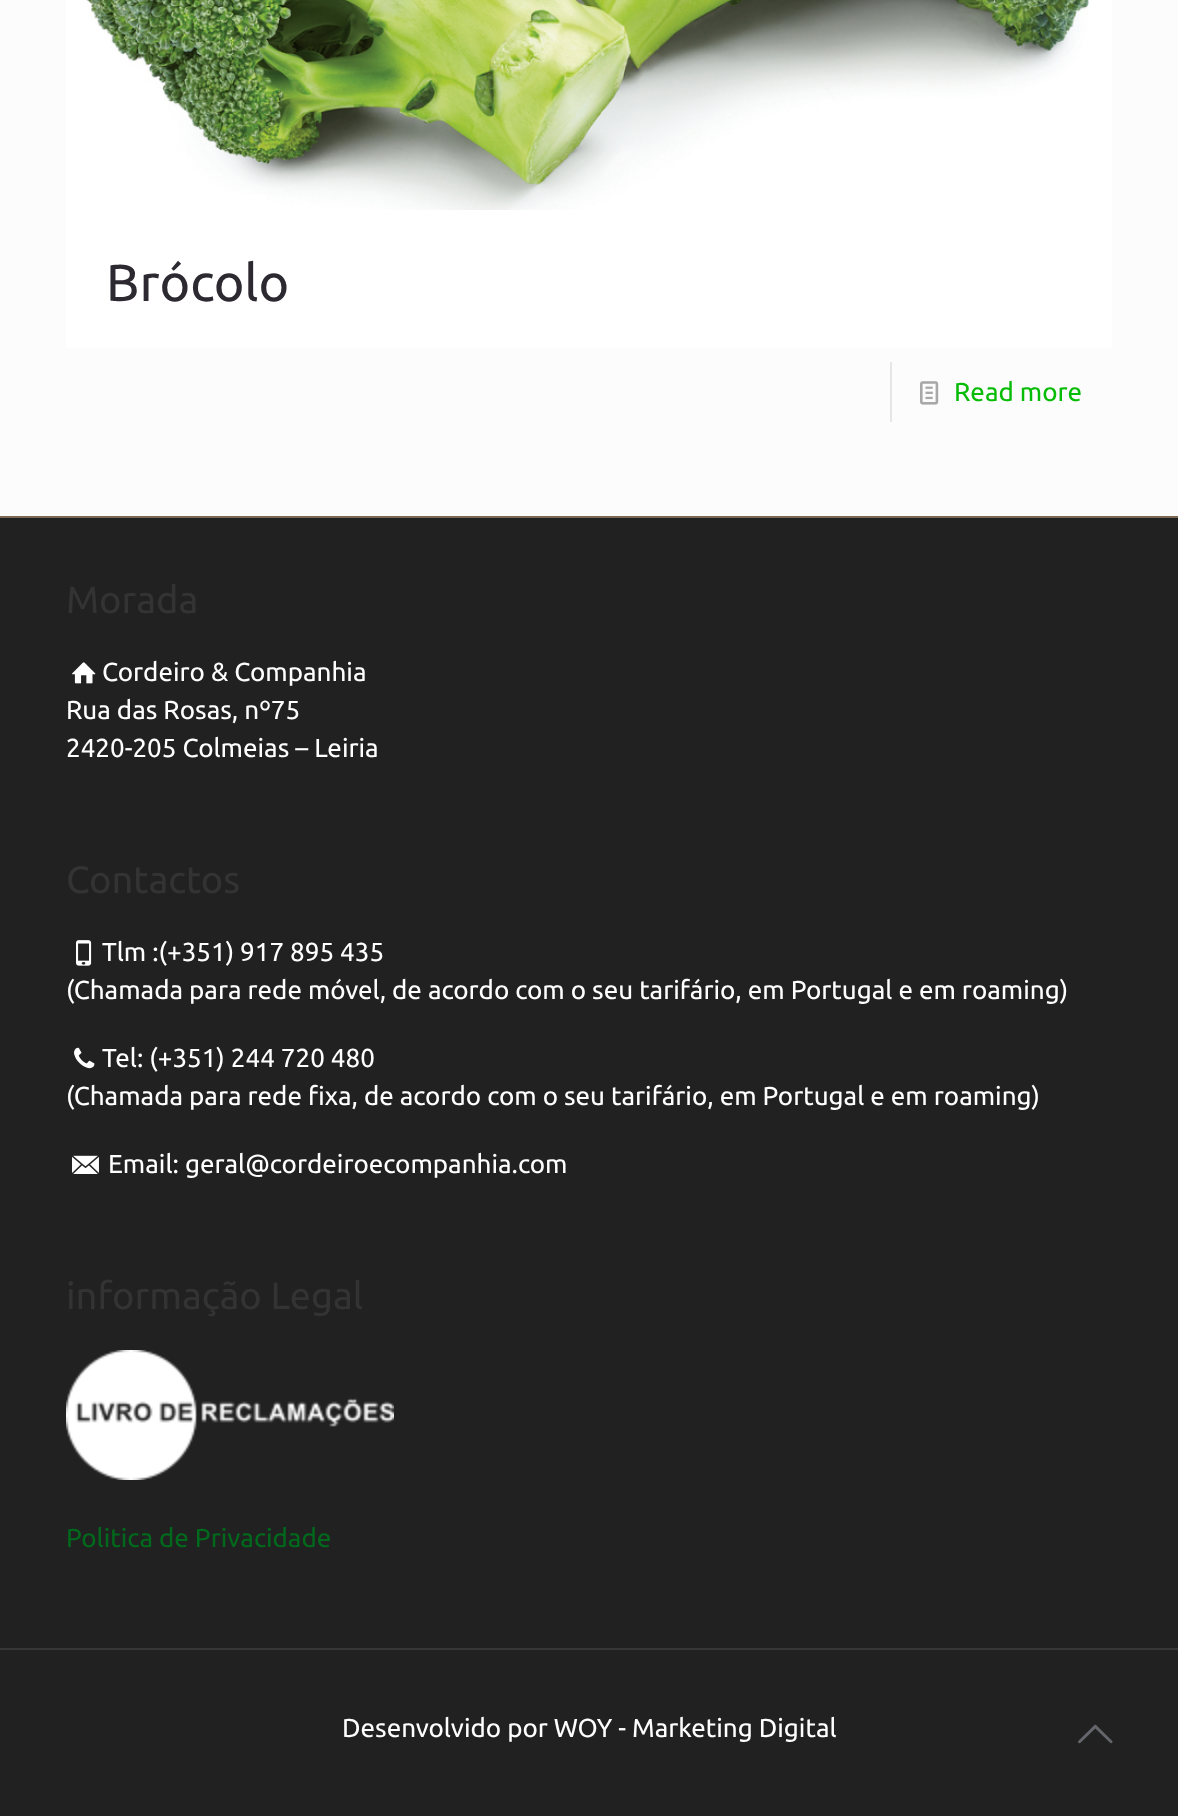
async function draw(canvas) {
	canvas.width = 1178;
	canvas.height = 1816;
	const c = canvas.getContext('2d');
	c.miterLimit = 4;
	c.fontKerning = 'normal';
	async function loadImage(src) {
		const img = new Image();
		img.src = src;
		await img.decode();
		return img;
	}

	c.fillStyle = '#fcfcfc';
	c.fillRect(0, 0, 1178, 1816);
	c.fillStyle = '#fff';
	c.fillRect(66, 0, 1046, 348);
	c.drawImage(await loadImage('img1.png'), 86, 0, 1003, 210);
	c.font = '52px Ubuntu';
	c.fillStyle = '#2c2930';
	c.fillText('Brócolo', 106, 301);
	c.fillStyle = '#e6e6e6';
	c.fillRect(890, 362, 2, 60);
	c.drawImage(await loadImage('img2.png'), 920, 381, 19, 24);
	c.font = '26px Ubuntu';
	c.fillStyle = '#07bc07';
	c.fillText('Read more', 954, 401);
	c.fillStyle = '#212121';
	c.fillRect(0, 518, 1178, 1298);
	c.fillStyle = '#7b6852';
	c.fillRect(0, 516, 1178, 2);
	c.font = '38px Ubuntu';
	c.fillStyle = '#333';
	c.fillText('Morada', 66, 613);
	c.drawImage(await loadImage('img3.png'), 72, 662, 24, 22);
	c.font = '26px Ubuntu';
	c.fillStyle = '#fff';
	for (const [text, x, y] of [
		['Cordeiro & Companhia', 102, 681],
		['Rua das Rosas, nº75', 66, 719],
		['2420-205 Colmeias – Leiria', 66, 757],
	]) {
		c.fillText(text, x, y);
	}
	c.font = '38px Ubuntu';
	c.fillStyle = '#333';
	c.fillText('Contactos', 66, 893);
	c.drawImage(await loadImage('img4.png'), 76, 940, 16, 26);
	c.font = '26px Ubuntu';
	c.fillStyle = '#fff';
	c.fillText('Tlm :(+351) 917 895 435', 102, 961);
	c.fillText('(Chamada para rede móvel, de acordo com o seu tarifário, em Portugal e em roaming)', 66, 999);
	c.drawImage(await loadImage('img5.png'), 74, 1047, 21, 22);
	c.fillText('Tel: (+351) 244 720 480', 102, 1067);
	c.fillText('(Chamada para rede fixa, de acordo com o seu tarifário, em Portugal e em roaming)', 66, 1105);
	c.drawImage(await loadImage('img6.png'), 72, 1155, 27, 19);
	c.fillText('Email: geral@cordeiroecompanhia.com', 108, 1173);
	c.font = '38px Ubuntu';
	c.fillStyle = '#333';
	c.fillText('informação Legal', 66, 1309);
	c.drawImage(await loadImage('img7.png'), 66, 1350, 328, 130);
	c.font = '26px Ubuntu';
	c.fillStyle = '#00691c';
	c.fillText('Politica de Privacidade', 66, 1547);
	c.fillStyle = '#373737';
	c.fillRect(0, 1648, 1178, 2);
	c.fillStyle = '#fff';
	c.fillText('Desenvolvido por WOY - Marketing Digital', 342, 1737);
	c.drawImage(await loadImage('img8.png'), 1078, 1724, 35, 20);
}

draw(document.querySelector('canvas'));
